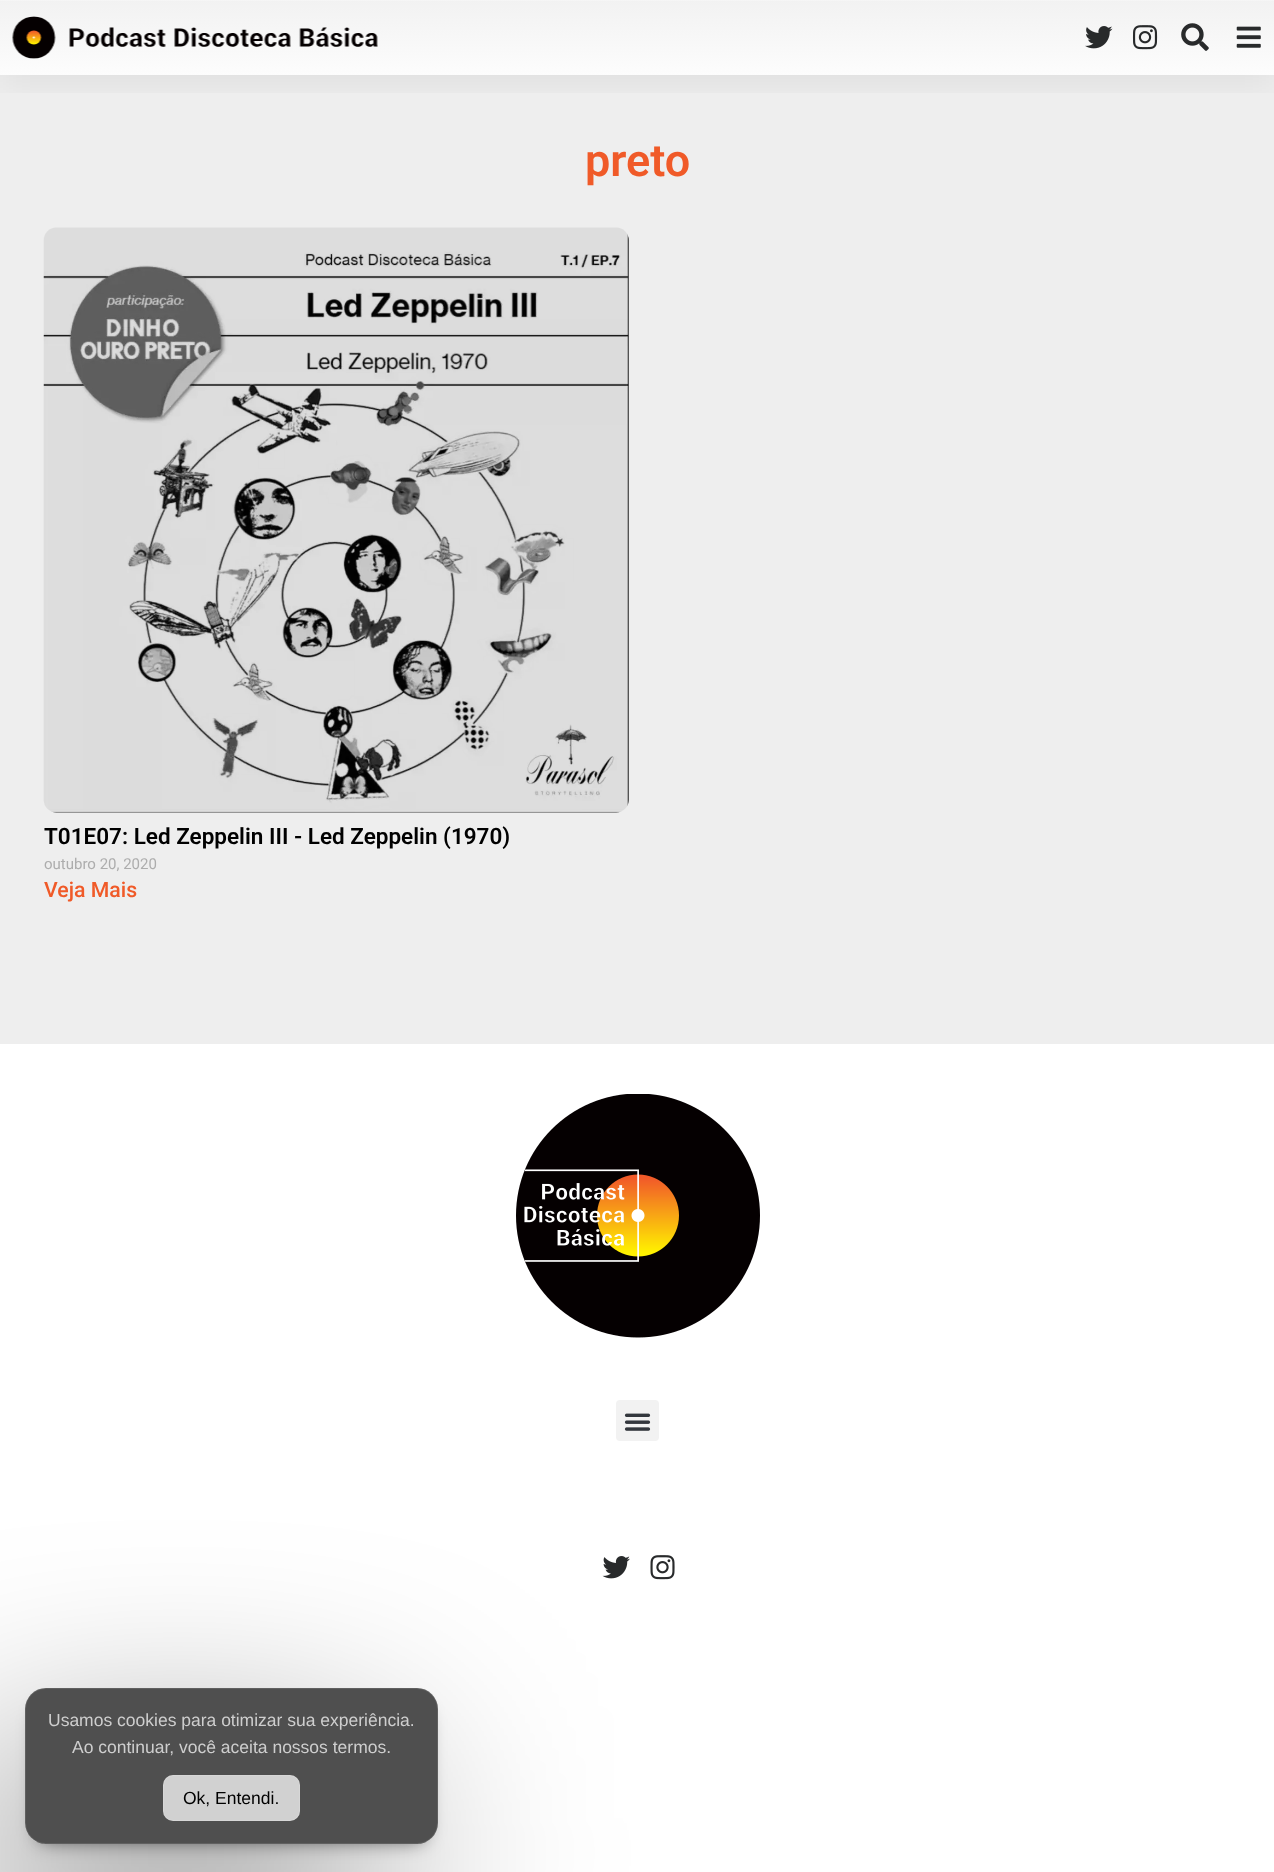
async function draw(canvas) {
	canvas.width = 1274;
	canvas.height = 1872;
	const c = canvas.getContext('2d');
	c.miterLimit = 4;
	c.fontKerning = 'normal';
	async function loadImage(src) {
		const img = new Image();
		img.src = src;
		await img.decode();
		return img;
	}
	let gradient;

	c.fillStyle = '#fff';
	c.fillRect(0, 0, 1274, 1872);
	c.fillStyle = '#eee';
	c.fillRect(0, 1, 1274, 1043);
	c.save();
	c.beginPath();
	c.rect(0, 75, 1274, 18);
	c.clip();
	c.fillStyle = '#0000000f';
	c.filter = 'blur(17.5px)';
	c.beginPath();
	c.rect(0, 10, 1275, 75);
	c.fill();
	c.filter = 'none';
	c.restore();
	gradient = c.createLinearGradient(638, 75, 638, 0);
	gradient.addColorStop(0, '#ffffffde');
	gradient.addColorStop(1, '#f3f3f3cf');
	c.fillStyle = gradient;
	c.fillRect(0, 0, 1274, 75);
	c.drawImage(await loadImage('img1.png'), 12, 16, 366, 43);
	c.drawImage(await loadImage('img2.png'), 1085, 26, 28, 23);
	c.drawImage(await loadImage('img3.png'), 1132, 25, 26, 25);
	c.drawImage(await loadImage('img4.png'), 1181, 23, 28, 28);
	c.drawImage(await loadImage('img5.png'), 1236, 26, 25, 22);
	c.font = '600 45px Roboto';
	c.fillStyle = '#f05a28';
	c.fillText('preto', 585, 176);
	c.drawImage(await loadImage('img6.png'), 43, 227, 586, 586);
	c.font = '600 22.5px Roboto';
	c.fillStyle = '#000';
	c.fillText('T01E07: Led Zeppelin III - Led Zeppelin (1970)', 44, 844);
	c.font = '15px Roboto';
	c.fillStyle = '#adadad';
	c.fillText('outubro 20, 2020', 44, 869);
	c.font = '500 21.25px Roboto';
	c.fillStyle = '#f05a28';
	c.fillText('Veja Mais', 44, 897);
	c.drawImage(await loadImage('img7.png'), 516, 1094, 244, 244);
	c.fillStyle = '#f2f2f2';
	c.beginPath();
	c.roundRect(616, 1400, 43, 41, 4);
	c.fill();
	c.drawImage(await loadImage('img8.png'), 624, 1413, 27, 18);
	c.drawImage(await loadImage('img9.png'), 602, 1556, 28, 23);
	c.drawImage(await loadImage('img10.png'), 650, 1555, 25, 25);
	c.save();
	c.beginPath();
	c.moveTo(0, 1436);
	c.lineTo(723, 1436);
	c.lineTo(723, 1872);
	c.lineTo(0, 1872);
	c.closePath();
	c.moveTo(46, 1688);
	c.lineTo(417, 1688);
	c.bezierCurveTo(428.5, 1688, 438, 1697.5, 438, 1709);
	c.lineTo(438, 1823);
	c.bezierCurveTo(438, 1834.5, 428.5, 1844, 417, 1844);
	c.lineTo(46, 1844);
	c.bezierCurveTo(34.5, 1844, 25, 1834.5, 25, 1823);
	c.lineTo(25, 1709);
	c.bezierCurveTo(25, 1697.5, 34.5, 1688, 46, 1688);
	c.closePath();
	c.clip('evenodd');
	c.fillStyle = '#00000082';
	c.filter = 'blur(112.5px)';
	c.beginPath();
	c.roundRect(-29, 1775, 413, 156, 21);
	c.fill();
	c.filter = 'none';
	c.restore();
	c.save();
	c.beginPath();
	c.moveTo(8, 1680);
	c.lineTo(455, 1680);
	c.lineTo(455, 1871);
	c.lineTo(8, 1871);
	c.closePath();
	c.moveTo(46, 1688);
	c.lineTo(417, 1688);
	c.bezierCurveTo(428.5, 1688, 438, 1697.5, 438, 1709);
	c.lineTo(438, 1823);
	c.bezierCurveTo(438, 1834.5, 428.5, 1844, 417, 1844);
	c.lineTo(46, 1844);
	c.bezierCurveTo(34.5, 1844, 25, 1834.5, 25, 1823);
	c.lineTo(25, 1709);
	c.bezierCurveTo(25, 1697.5, 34.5, 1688, 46, 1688);
	c.closePath();
	c.clip('evenodd');
	c.fillStyle = '#000000a1';
	c.filter = 'blur(9.5px)';
	c.beginPath();
	c.roundRect(38, 1710, 387, 131, 9);
	c.fill();
	c.filter = 'none';
	c.restore();
	c.fillStyle = '#1e1e1ec7';
	c.beginPath();
	c.roundRect(25, 1688, 413, 156, 21);
	c.fill();
	c.beginPath();
	c.roundRect(25.5, 1688.5, 412, 155, 20.5);
	c.strokeStyle = '#ffffff1a';
	c.stroke();
	c.font = '17.5px Liberation Sans';
	c.fillStyle = '#cecece';
	c.fillText('Usamos cookies para otimizar sua experiência.', 48, 1726);
	c.fillText('Ao continuar, você aceita nossos termos.', 72, 1753);
	c.fillStyle = '#d1d1d1';
	c.beginPath();
	c.roundRect(163, 1775, 137, 46, 10);
	c.fill();
	c.beginPath();
	c.roundRect(163.5, 1775.5, 136, 45, 9.5);
	c.strokeStyle = '#ffffff24';
	c.stroke();
	c.fillStyle = '#000';
	c.fillText('Ok, Entendi.', 183, 1804);
}

draw(document.querySelector('canvas'));
